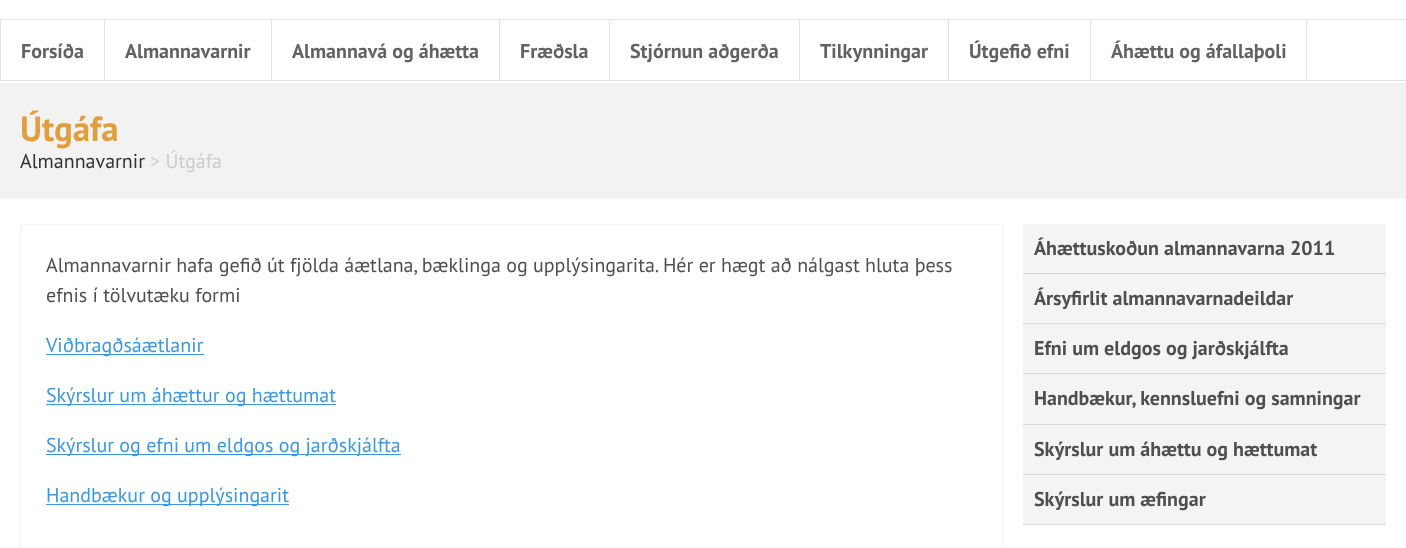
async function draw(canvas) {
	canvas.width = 1406;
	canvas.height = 548;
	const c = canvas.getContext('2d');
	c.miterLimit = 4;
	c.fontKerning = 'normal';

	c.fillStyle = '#fff';
	c.fillRect(0, 0, 1406, 548);
	for (const [x, y, w, h, color] of [
		[0, 19, 1406, 1, '#e3e3e3'],
		[0, 80, 1406, 1, '#e3e3e3'],
		[104, 20, 1, 60, '#e3e3e3'],
		[0, 20, 1, 60, '#e3e3e3'],
	]) {
		c.fillStyle = color;
		c.fillRect(x, y, w, h);
	}
	c.font = 'bold 20px PT Sans';
	c.fillStyle = '#626262';
	c.fillText('Forsíða', 21, 58);
	c.fillStyle = '#e3e3e3';
	c.fillRect(271, 20, 1, 60);
	c.fillStyle = '#626262';
	c.fillText('Almannavarnir', 125, 58);
	c.fillStyle = '#e3e3e3';
	c.fillRect(499, 20, 1, 60);
	c.fillStyle = '#626262';
	c.fillText('Almannavá og áhætta', 292, 58);
	c.fillStyle = '#e3e3e3';
	c.fillRect(609, 20, 1, 60);
	c.fillStyle = '#626262';
	c.fillText('Fræðsla', 520, 58);
	c.fillStyle = '#e3e3e3';
	c.fillRect(799, 20, 1, 60);
	c.fillStyle = '#626262';
	c.fillText('Stjórnun aðgerða', 630, 58);
	c.fillStyle = '#e3e3e3';
	c.fillRect(948, 20, 1, 60);
	c.fillStyle = '#626262';
	c.fillText('Tilkynningar', 820, 58);
	c.fillStyle = '#e3e3e3';
	c.fillRect(1090, 20, 1, 60);
	c.fillStyle = '#626262';
	c.fillText('Útgefið efni', 969, 58);
	c.fillStyle = '#e3e3e3';
	c.fillRect(1306, 20, 1, 60);
	c.fillStyle = '#626262';
	c.fillText('Áhættu og áfallaþoli', 1111, 58);
	c.fillStyle = '#f2f2f2';
	c.fillRect(0, 83, 1406, 116);
	c.font = 'bold 35px PT Sans';
	c.fillStyle = '#e09e3d';
	c.fillText('Útgáfa', 20, 141);
	c.font = '20px PT Sans';
	c.fillStyle = '#333';
	c.fillText('Almannavarnir', 20, 168);
	c.fillStyle = '#ccc';
	c.fillText('> Útgáfa', 150, 168);
	c.strokeStyle = '#f4f4f4';
	c.strokeRect(20.5, 224.5, 982, 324);
	c.fillStyle = '#4f4f4f';
	c.fillText('Almannavarnir hafa gefið út fjölda áætlana, bæklinga og upplýsingarita. Hér er hægt að nálgast hluta þess', 46, 272);
	c.fillText('efnis í tölvutæku formi', 46, 302);
	c.fillStyle = '#3a97e1';
	c.fillRect(46, 354, 158, 1);
	c.fillText('Viðbragðsáætlanir', 46, 352);
	c.fillRect(46, 404, 290, 1);
	c.fillText('Skýrslur um áhættur og hættumat', 46, 402);
	c.fillRect(46, 454, 355, 1);
	c.fillText('Skýrslur og efni um eldgos og jarðskjálfta', 46, 452);
	c.fillRect(46, 504, 243, 1);
	c.fillText('Handbækur og upplýsingarit', 46, 502);
	c.fillStyle = '#f4f4f4';
	c.fillRect(1023, 224, 363, 49);
	c.fillStyle = '#dadada';
	c.fillRect(1023, 273, 363, 1);
	c.font = 'bold 20px PT Sans';
	c.fillStyle = '#4f4f4f';
	c.fillText('Áhættuskoðun almannavarna 2011', 1034, 255);
	c.fillStyle = '#f4f4f4';
	c.fillRect(1023, 274, 363, 49);
	c.fillStyle = '#dadada';
	c.fillRect(1023, 323, 363, 1);
	c.fillStyle = '#4f4f4f';
	c.fillText('Ársyfirlit almannavarnadeildar', 1034, 305);
	c.fillStyle = '#f4f4f4';
	c.fillRect(1023, 324, 363, 49);
	c.fillStyle = '#dadada';
	c.fillRect(1023, 373, 363, 1);
	c.fillStyle = '#4f4f4f';
	c.fillText('Efni um eldgos og jarðskjálfta', 1034, 355);
	c.fillStyle = '#f4f4f4';
	c.fillRect(1023, 374, 363, 50);
	c.fillStyle = '#dadada';
	c.fillRect(1023, 424, 363, 1);
	c.fillStyle = '#4f4f4f';
	c.fillText('Handbækur, kennsluefni og samningar', 1034, 405);
	c.fillStyle = '#f4f4f4';
	c.fillRect(1023, 425, 363, 49);
	c.fillStyle = '#dadada';
	c.fillRect(1023, 474, 363, 1);
	c.fillStyle = '#4f4f4f';
	c.fillText('Skýrslur um áhættu og hættumat', 1034, 456);
	c.fillStyle = '#f4f4f4';
	c.fillRect(1023, 475, 363, 49);
	c.fillStyle = '#dadada';
	c.fillRect(1023, 524, 363, 1);
	c.fillStyle = '#4f4f4f';
	c.fillText('Skýrslur um æfingar', 1034, 506);
}

draw(document.querySelector('canvas'));
